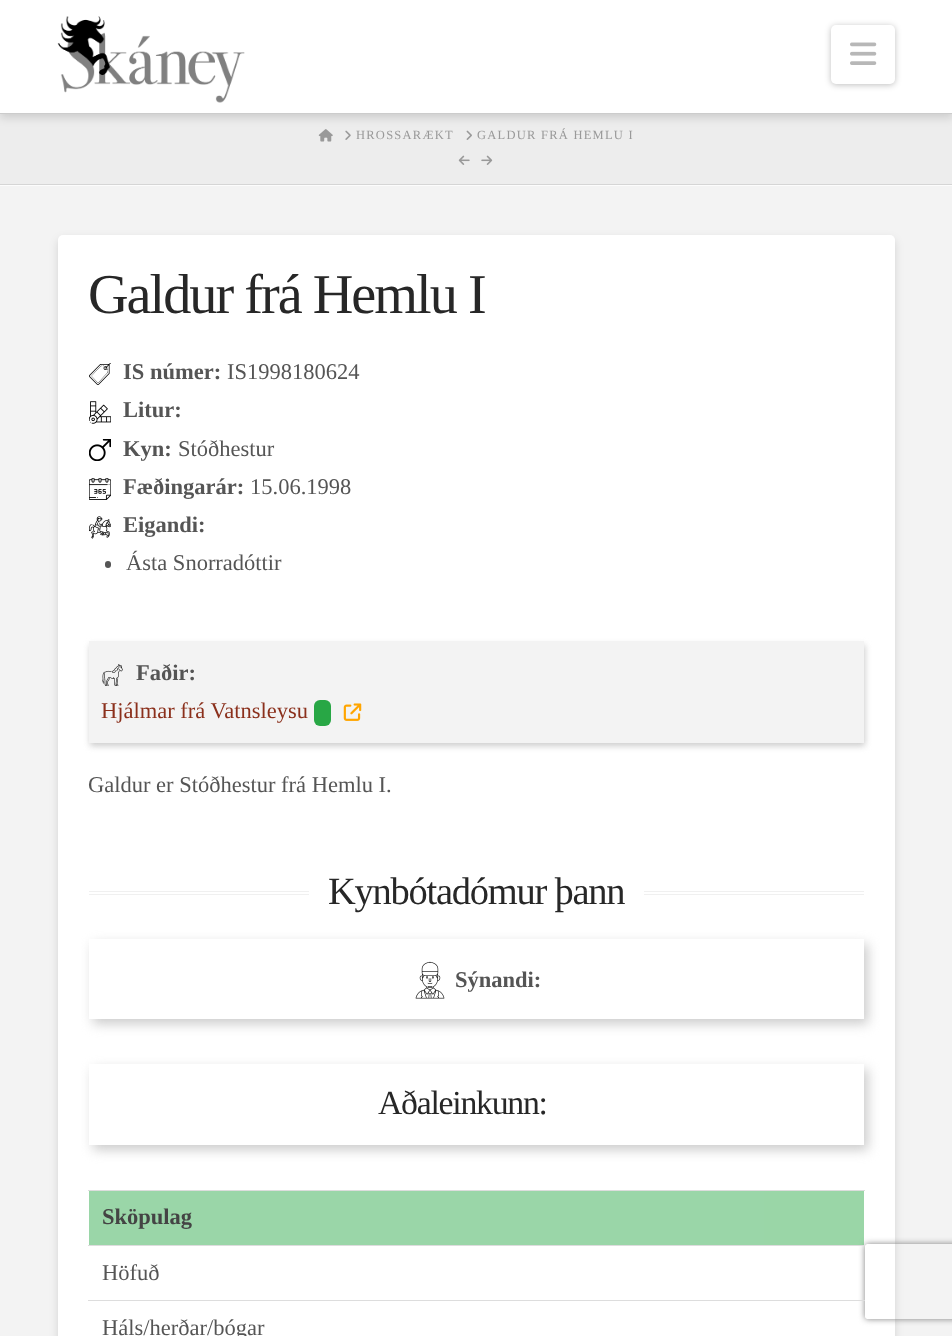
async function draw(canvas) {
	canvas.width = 952;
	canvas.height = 1336;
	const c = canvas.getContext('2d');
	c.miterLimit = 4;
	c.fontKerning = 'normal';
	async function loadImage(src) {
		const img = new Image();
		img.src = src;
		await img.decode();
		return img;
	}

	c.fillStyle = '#f3f3f3';
	c.fillRect(0, 0, 952, 1336);
	c.fillStyle = '#ededed';
	c.fillRect(0, 114, 952, 70);
	c.drawImage(await loadImage('img3.png'), 318, 129, 15, 13);
	c.drawImage(await loadImage('img4.png'), 345, 130, 6, 10);
	c.drawImage(await loadImage('img5.png'), 466, 130, 6, 10);
	c.fillStyle = '#00000021';
	c.filter = 'blur(4px)';
	c.beginPath();
	c.rect(0, 4, 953, 114);
	c.fill();
	c.filter = 'none';
	c.fillStyle = '#fff';
	c.fillRect(0, 0, 952, 113);
	c.fillStyle = '#ccc';
	c.fillRect(0, 113, 952, 1);
	c.drawImage(await loadImage('img1.png'), 57, 16, 188, 87);
	c.fillStyle = '#00000040';
	c.filter = 'blur(3px)';
	c.beginPath();
	c.roundRect(831, 26, 64, 59, 5);
	c.fill();
	c.filter = 'none';
	c.fillStyle = '#fff';
	c.beginPath();
	c.roundRect(831, 25, 64, 59, 5);
	c.fill();
	c.drawImage(await loadImage('img2.png'), 850, 42, 27, 23);
	c.fillStyle = '#fcfcfc';
	c.beginPath();
	c.moveTo(0, 185);
	c.lineTo(0, 186);
	c.lineTo(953, 186);
	c.lineTo(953, 115);
	c.lineTo(952, 115);
	c.lineTo(952, 185);
	c.closePath();
	c.fill();
	c.fillStyle = '#d5d5d5';
	c.fillRect(0, 184, 952, 1);
	c.letterSpacing = '1.25px';
	c.font = '12.5px Liberation Serif';
	c.fillStyle = '#999';
	c.fillText('HROSSARÆKT', 356, 139);
	c.fillText('GALDUR FRÁ HEMLU I', 477, 139);
	c.drawImage(await loadImage('img6.png'), 458, 155, 12, 10);
	c.drawImage(await loadImage('img7.png'), 481, 155, 12, 10);
	c.fillStyle = '#00000021';
	c.filter = 'blur(4px)';
	c.beginPath();
	c.roundRect(58, 239, 837, 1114, 5);
	c.fill();
	c.filter = 'none';
	c.fillStyle = '#fff';
	c.beginPath();
	c.roundRect(58, 235, 837, 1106, 5);
	c.fill();
	c.letterSpacing = '-2px';
	c.font = '56.25px Liberation Serif';
	c.fillStyle = '#272727';
	c.fillText('Galdur frá Hemlu I', 88, 313);
	c.drawImage(await loadImage('img8.png'), 89, 363, 22, 22);
	c.letterSpacing = '0px';
	c.font = 'bold 22.5px Liberation Serif';
	c.fillStyle = '#555';
	c.fillText('IS númer:', 123, 379);
	c.font = '22.5px Liberation Serif';
	c.fillText('IS1998180624', 227, 379);
	c.drawImage(await loadImage('img9.png'), 89, 401, 22, 23);
	c.font = 'bold 22.5px Liberation Serif';
	c.fillText('Litur:', 123, 417);
	c.drawImage(await loadImage('img10.png'), 89, 439, 22, 22);
	c.fillText('Kyn:', 123, 456);
	c.font = '22.5px Liberation Serif';
	c.fillText('Stóðhestur', 178, 456);
	c.drawImage(await loadImage('img11.png'), 89, 478, 22, 22);
	c.font = 'bold 22.5px Liberation Serif';
	c.fillText('Fæðingarár:', 123, 494);
	c.font = '22.5px Liberation Serif';
	c.fillText('15.06.1998', 250, 494);
	c.drawImage(await loadImage('img12.png'), 89, 516, 22, 23);
	c.font = 'bold 22.5px Liberation Serif';
	c.fillText('Eigandi:', 123, 532);
	c.beginPath();
	c.roundRect(105, 561, 6, 7, 3);
	c.fill();
	c.font = '22.5px Liberation Serif';
	c.fillText('Ásta Snorradóttir', 126, 570);
	c.fillStyle = '#ccc';
	c.filter = 'blur(3px)';
	c.beginPath();
	c.rect(90, 645, 775, 101);
	c.fill();
	c.filter = 'none';
	c.fillStyle = '#f3f3f3';
	c.fillRect(89, 641, 775, 102);
	c.drawImage(await loadImage('img13.png'), 102, 664, 21, 22);
	c.font = 'bold 22.5px Liberation Serif';
	c.fillStyle = '#555';
	c.fillText('Faðir:', 136, 680);
	c.font = '22.5px Liberation Serif';
	c.fillStyle = '#8b301c';
	c.fillText('Hjálmar frá Vatnsleysu', 101, 718);
	c.fillStyle = '#28a745';
	c.beginPath();
	c.roundRect(314, 700, 17, 26, 6);
	c.fill();
	c.drawImage(await loadImage('img14.png'), 343, 703, 19, 18);
	c.fillStyle = '#555';
	c.fillText('Galdur er Stóðhestur frá Hemlu I.', 88, 792);
	c.fillStyle = '#f0f0f0';
	c.fillRect(89, 891, 220, 1);
	c.fillRect(89, 894, 220, 1);
	c.letterSpacing = '-1.25px';
	c.font = '38.5px Liberation Serif';
	c.fillStyle = '#272727';
	c.fillText('Kynbótadómur þann', 328, 904);
	c.fillStyle = '#f0f0f0';
	c.fillRect(644, 891, 220, 1);
	c.fillRect(644, 894, 220, 1);
	c.save();
	c.beginPath();
	c.moveTo(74, 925);
	c.lineTo(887, 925);
	c.lineTo(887, 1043);
	c.lineTo(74, 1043);
	c.closePath();
	c.moveTo(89, 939);
	c.lineTo(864, 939);
	c.lineTo(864, 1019);
	c.lineTo(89, 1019);
	c.closePath();
	c.clip('evenodd');
	c.fillStyle = '#ccc';
	c.filter = 'blur(6px)';
	c.beginPath();
	c.rect(93, 944, 775, 80);
	c.fill();
	c.filter = 'none';
	c.restore();
	c.drawImage(await loadImage('img15.png'), 415, 961, 30, 38);
	c.letterSpacing = '0px';
	c.font = 'bold 22.5px Liberation Serif';
	c.fillStyle = '#555';
	c.fillText('Sýnandi:', 455, 987);
	c.save();
	c.beginPath();
	c.moveTo(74, 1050);
	c.lineTo(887, 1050);
	c.lineTo(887, 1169);
	c.lineTo(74, 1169);
	c.closePath();
	c.moveTo(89, 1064);
	c.lineTo(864, 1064);
	c.lineTo(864, 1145);
	c.lineTo(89, 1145);
	c.closePath();
	c.clip('evenodd');
	c.fillStyle = '#ccc';
	c.filter = 'blur(6px)';
	c.beginPath();
	c.rect(93, 1069, 775, 81);
	c.fill();
	c.filter = 'none';
	c.restore();
	c.letterSpacing = '-1.25px';
	c.font = '33.75px Liberation Serif';
	c.fillStyle = '#272727';
	c.fillText('Aðaleinkunn:', 378, 1114);
	c.save();
	c.beginPath();
	c.moveTo(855, 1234);
	c.lineTo(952, 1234);
	c.lineTo(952, 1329);
	c.lineTo(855, 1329);
	c.closePath();
	c.moveTo(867.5, 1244);
	c.lineTo(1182.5, 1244);
	c.bezierCurveTo(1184, 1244, 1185, 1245, 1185, 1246.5);
	c.lineTo(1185, 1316.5);
	c.bezierCurveTo(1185, 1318, 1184, 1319, 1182.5, 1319);
	c.lineTo(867.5, 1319);
	c.bezierCurveTo(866, 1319, 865, 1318, 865, 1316.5);
	c.lineTo(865, 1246.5);
	c.bezierCurveTo(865, 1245, 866, 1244, 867.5, 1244);
	c.closePath();
	c.clip('evenodd');
	c.fillStyle = '#808080';
	c.filter = 'blur(3px)';
	c.beginPath();
	c.roundRect(865, 1244, 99, 75, 2.5);
	c.fill();
	c.filter = 'none';
	c.restore();
	for (const [x, y, w, h, color] of [
		[764, 1191, 100, 54, '#28a74578'],
		[88, 1190, 777, 1, '#ddd'],
		[89, 1191, 675, 54, '#9ad6a8'],
	]) {
		c.fillStyle = color;
		c.fillRect(x, y, w, h);
	}
	c.letterSpacing = '0px';
	c.font = 'bold 22.5px Liberation Serif';
	c.fillStyle = '#444';
	c.fillText('Sköpulag', 102, 1224);
	c.fillStyle = '#ddd';
	c.fillRect(88, 1245, 777, 1);
	c.font = '22.5px Liberation Serif';
	c.fillStyle = '#555';
	c.fillText('Höfuð', 102, 1280);
	c.fillStyle = '#ddd';
	c.fillRect(88, 1300, 777, 1);
	c.fillStyle = '#555';
	c.fillText('Háls/herðar/bógar', 102, 1335);
}

draw(document.querySelector('canvas'));
